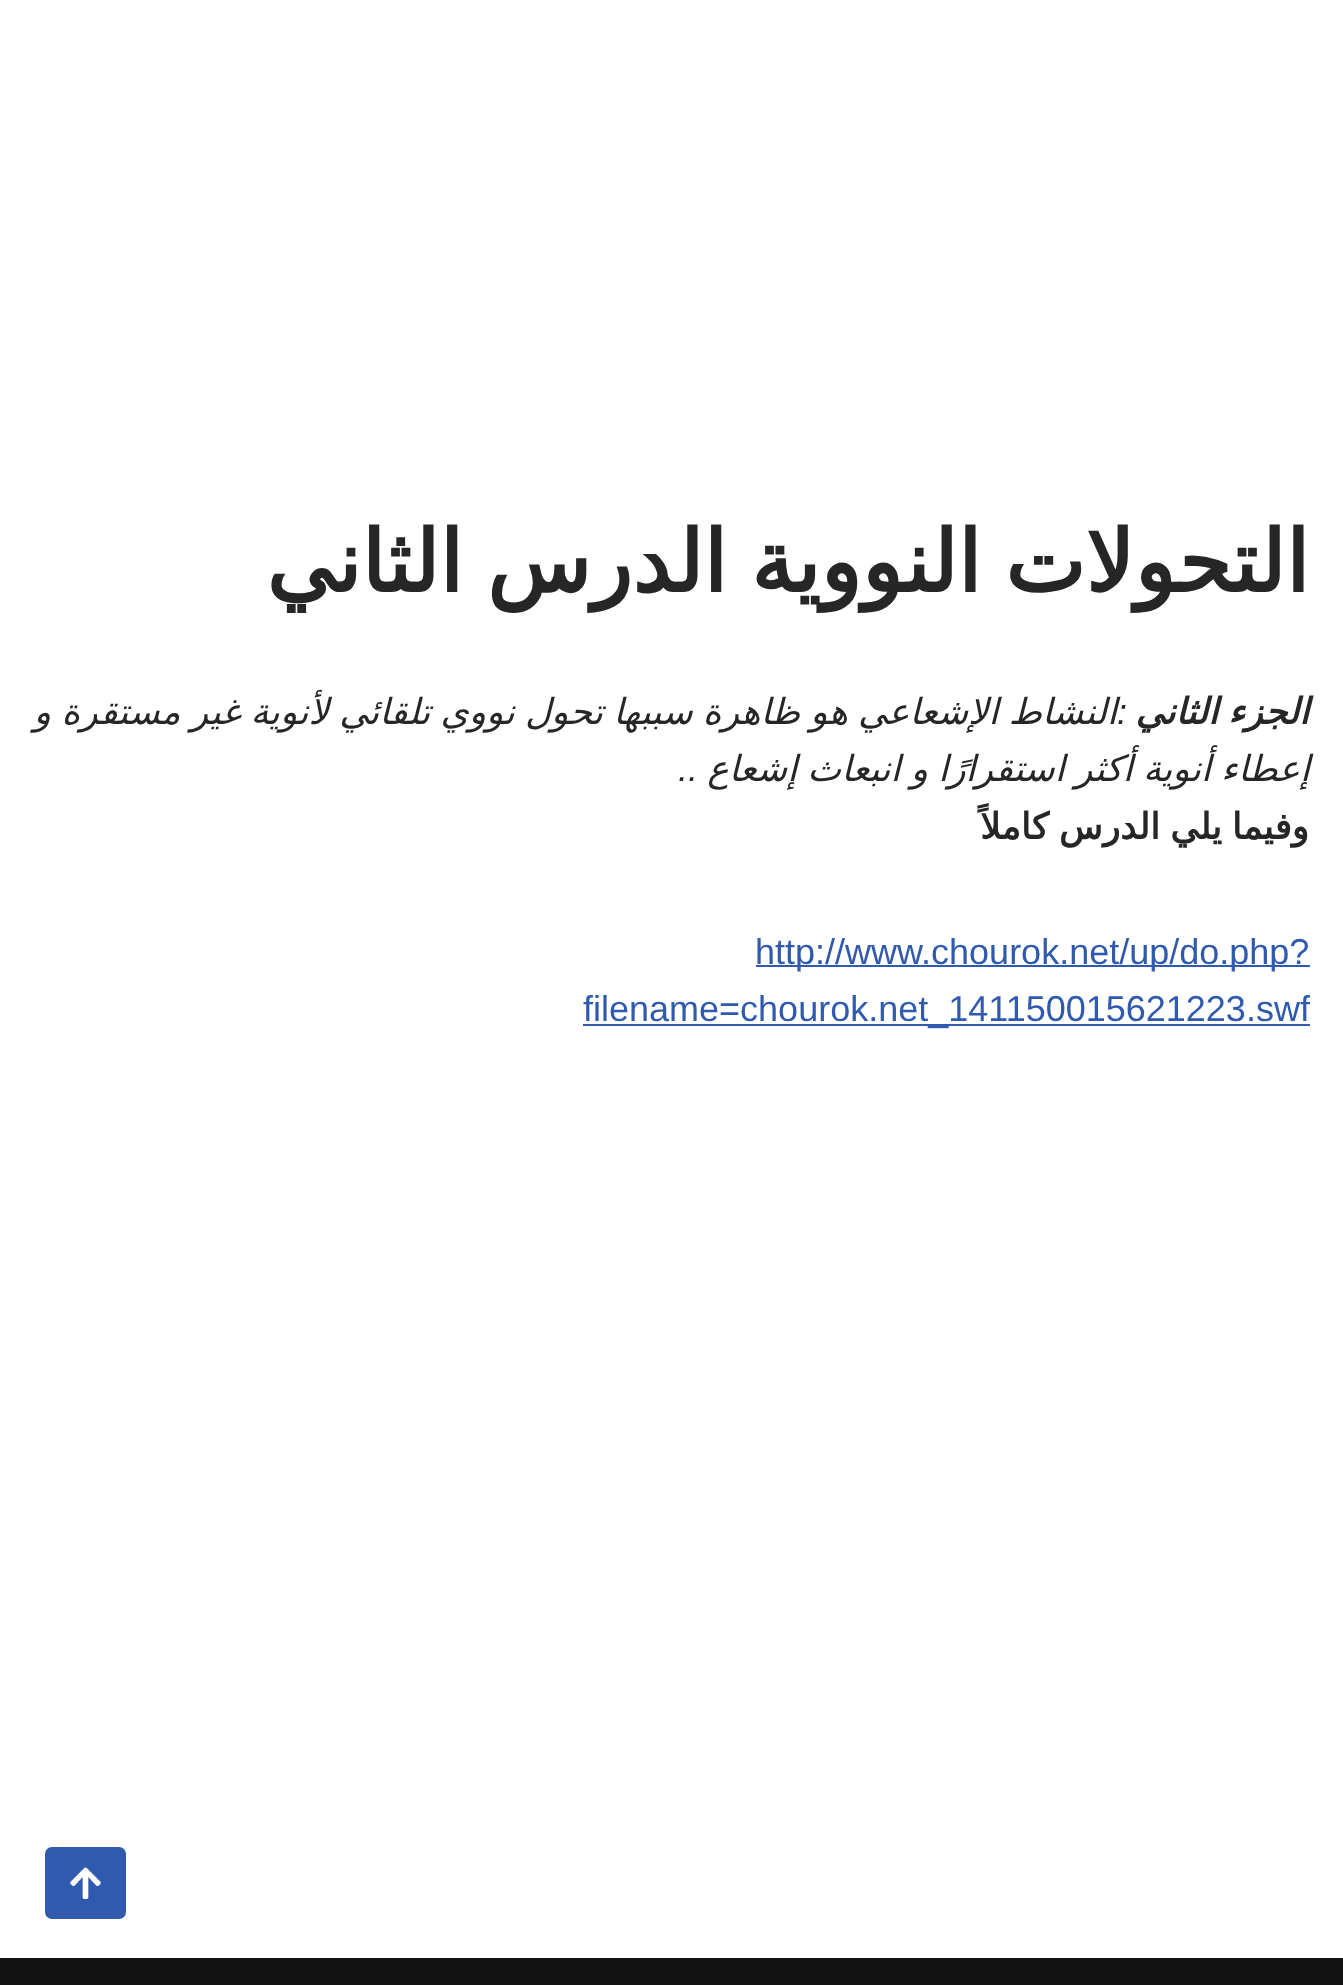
async function draw(canvas) {
	canvas.width = 1343;
	canvas.height = 1985;
	const c = canvas.getContext('2d');
	c.miterLimit = 4;
	c.fontKerning = 'normal';
	async function loadImage(src) {
		const img = new Image();
		img.src = src;
		await img.decode();
		return img;
	}

	c.fillStyle = '#fff';
	c.fillRect(0, 0, 1343, 1985);
	c.wordSpacing = '-3.5px';
	c.direction = 'rtl';
	c.font = 'bold 85.5px DejaVu Sans';
	c.fillStyle = '#272626';
	c.fillText('التحولات النووية الدرس الثاني', 1309, 592);
	c.wordSpacing = '-1.5px';
	c.font = 'italic bold 36px DejaVu Sans';
	c.fillText('الجزء الثاني', 1309, 724);
	c.wordSpacing = '-1.25px';
	c.font = 'italic 36px DejaVu Sans';
	c.fillText('النشاط الإشعاعي هو ظاهرة سببها تحول نووي تلقائي لأنوية غير مستقرة و', 1117, 724);
	c.wordSpacing = '0px';
	c.font = 'italic 36px Liberation Sans';
	c.fillText(':', 1127, 724);
	c.wordSpacing = '-1.25px';
	c.font = 'italic 36px DejaVu Sans';
	c.fillText('إعطاء أنوية أكثر استقرارًا و انبعاث إشعاع', 1310, 781);
	c.wordSpacing = '0px';
	c.font = 'italic 36px Liberation Sans';
	c.fillText('..', 698, 781);
	c.wordSpacing = '-1.5px';
	c.font = 'bold 36px DejaVu Sans';
	c.fillText('وفيما يلي الدرس كاملاً', 1309, 839);
	c.fillStyle = '#2f5aae';
	c.fillRect(756, 965, 554, 2);
	c.wordSpacing = '0px';
	c.direction = 'ltr';
	c.font = '36px Liberation Sans';
	c.fillText('http://www.chourok.net/up/do.php?', 755, 964);
	c.fillRect(583, 1024, 727, 2);
	c.fillText('filename=chourok.net_141150015621223.swf', 583, 1021);
	c.beginPath();
	c.roundRect(45, 1847, 81, 72, 7);
	c.fill();
	c.drawImage(await loadImage('img1.png'), 70, 1867, 31, 32);
	c.fillStyle = '#121212';
	c.fillRect(0, 1958, 1343, 27);
}

draw(document.querySelector('canvas'));
